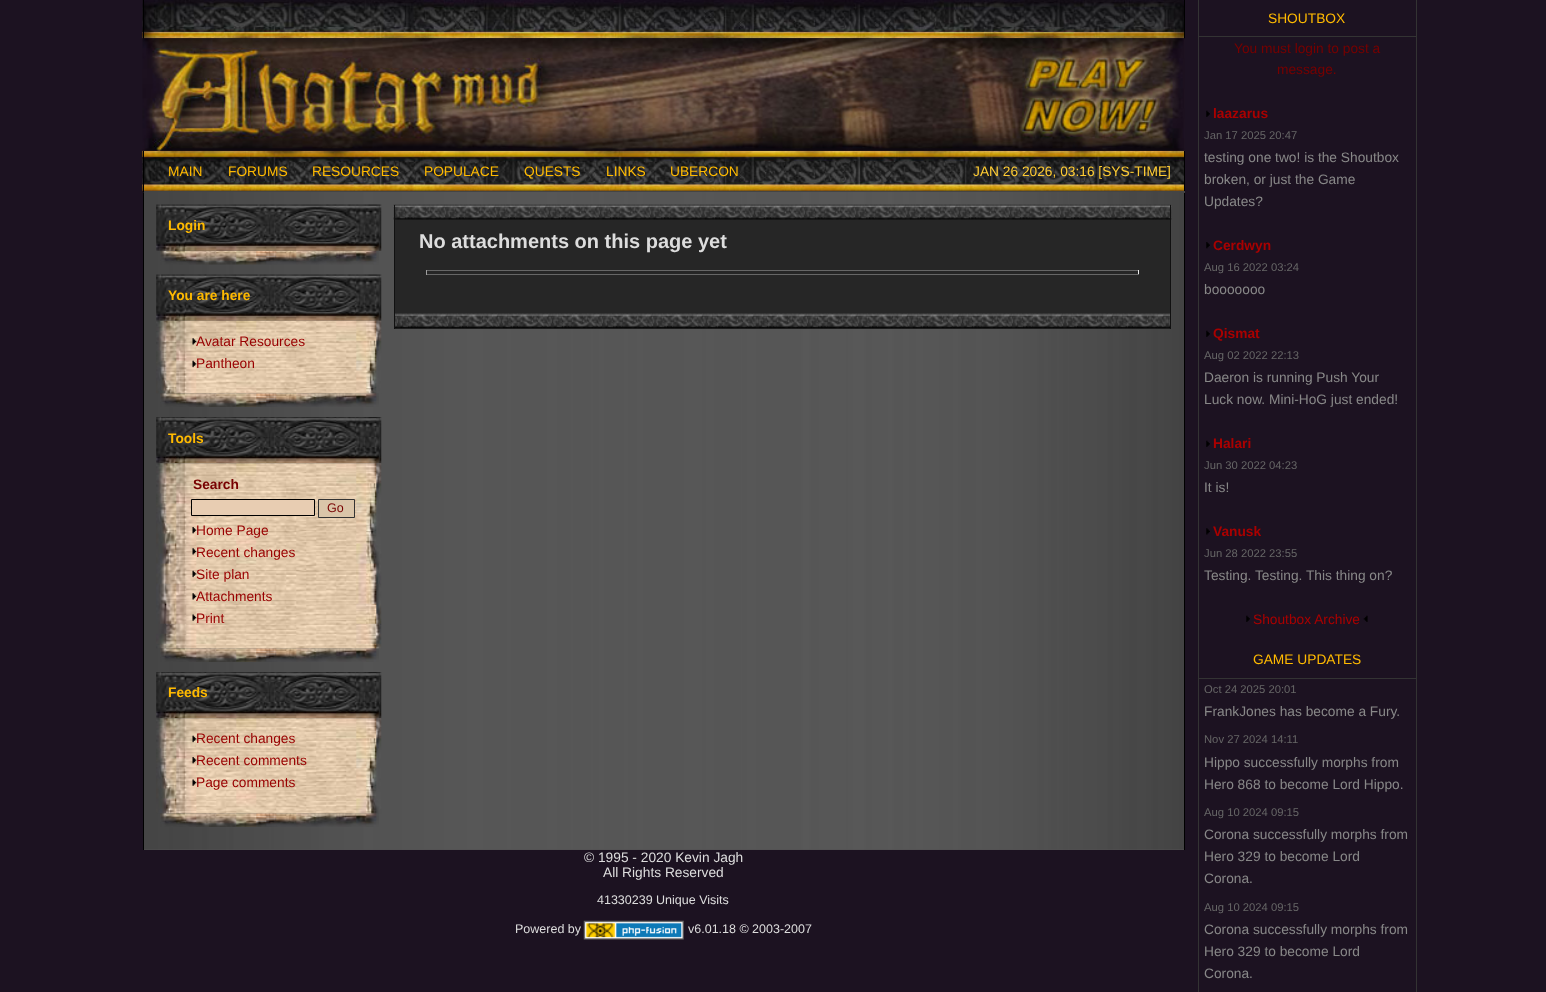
async function draw(canvas) {
	canvas.width = 1546;
	canvas.height = 992;
	const c = canvas.getContext('2d');
	c.miterLimit = 4;
	c.fontKerning = 'normal';
	async function loadImage(src) {
		const img = new Image();
		img.src = src;
		await img.decode();
		return img;
	}

	c.fillStyle = '#1c1221';
	c.fillRect(0, 0, 1546, 992);
	c.drawImage(await loadImage('img1.png'), 142, 0, 1042, 39);
	c.fillStyle = '#000';
	c.fillRect(1184, 0, 1, 39);
	c.fillRect(143, 0, 1, 39);
	c.drawImage(await loadImage('img3.png'), 142, 150, 1043, 41);
	c.drawImage(await loadImage('img2.png'), 142, 38, 1043, 113);
	for (const [x, y, w, h, color] of [
		[1184, 151, 1, 42, '#000'],
		[143, 191, 1042, 1, '#444'],
		[143, 151, 1, 42, '#000'],
	]) {
		c.fillStyle = color;
		c.fillRect(x, y, w, h);
	}
	c.font = '13.75px Liberation Sans';
	c.fillStyle = '#ffba00';
	for (const [text, x, y] of [
		['MAIN', 168, 176],
		['FORUMS', 228, 176],
		['RESOURCES', 312, 176],
		['POPULACE', 424, 176],
		['QUESTS', 524, 176],
		['LINKS', 606, 176],
		['UBERCON', 670, 176],
	]) {
		c.fillText(text, x, y);
	}
	c.fillStyle = '#fc3';
	c.fillText('JAN 26 2026, 03:16 [SYS-TIME]', 973, 176);
	c.fillStyle = '#525152';
	c.fillRect(144, 849, 1040, 1);
	c.drawImage(await loadImage('img4.png'), 143, 192, 1042, 658);
	c.fillStyle = '#000';
	c.fillRect(1184, 193, 1, 657);
	c.fillRect(143, 193, 1, 657);
	c.drawImage(await loadImage('img5.png'), 160, 250, 219, 15);
	c.drawImage(await loadImage('img6.png'), 156, 204, 226, 47);
	c.font = 'bold 13.75px Liberation Sans';
	c.fillStyle = '#ffba00';
	c.fillText('Login', 168, 230);
	c.drawImage(await loadImage('img7.png'), 160, 393, 219, 14);
	c.drawImage(await loadImage('img8.png'), 156, 274, 226, 47);
	c.fillText('You are here', 168, 300);
	c.drawImage(await loadImage('img9.png'), 156, 320, 226, 74);
	c.drawImage(await loadImage('img10.png'), 192, 338, 5, 7);
	c.font = '13.75px Liberation Sans';
	c.fillStyle = '#900';
	c.fillText('Avatar Resources', 196, 346);
	c.drawImage(await loadImage('img11.png'), 192, 360, 5, 8);
	c.fillText('Pantheon', 196, 368);
	c.drawImage(await loadImage('img7.png'), 160, 648, 219, 14);
	c.drawImage(await loadImage('img12.png'), 156, 417, 226, 47);
	c.font = 'bold 13.75px Liberation Sans';
	c.fillStyle = '#ffba00';
	c.fillText('Tools', 168, 443);
	c.drawImage(await loadImage('img13.png'), 156, 463, 226, 186);
	c.fillStyle = '#700';
	c.fillText('Search', 193, 489);
	c.fillStyle = '#e8cdb2';
	c.beginPath();
	c.rect(191.5, 499.5, 123, 16);
	c.fill();
	c.strokeStyle = '#000';
	c.stroke();
	c.fillStyle = '#dac5a9';
	c.beginPath();
	c.rect(318.5, 499.5, 36, 18);
	c.fill();
	c.strokeStyle = '#333';
	c.stroke();
	c.font = '12.5px Liberation Sans';
	c.fillStyle = '#700';
	c.fillText('Go', 327, 512);
	c.drawImage(await loadImage('img14.png'), 192, 527, 5, 7);
	c.font = '13.75px Liberation Sans';
	c.fillStyle = '#900';
	c.fillText('Home Page', 196, 535);
	c.drawImage(await loadImage('img15.png'), 192, 548, 5, 7);
	c.fillText('Recent changes', 196, 557);
	c.drawImage(await loadImage('img16.png'), 192, 570, 5, 8);
	c.fillText('Site plan', 196, 579);
	c.drawImage(await loadImage('img17.png'), 192, 593, 5, 7);
	c.fillText('Attachments', 196, 601);
	c.drawImage(await loadImage('img18.png'), 192, 614, 5, 7);
	c.fillText('Print', 196, 623);
	c.drawImage(await loadImage('img7.png'), 160, 813, 219, 14);
	c.drawImage(await loadImage('img12.png'), 156, 672, 226, 47);
	c.font = 'bold 13.75px Liberation Sans';
	c.fillStyle = '#ffba00';
	c.fillText('Feeds', 168, 697);
	c.drawImage(await loadImage('img19.png'), 156, 718, 226, 96);
	c.drawImage(await loadImage('img20.png'), 192, 735, 5, 8);
	c.font = '13.75px Liberation Sans';
	c.fillStyle = '#900';
	c.fillText('Recent changes', 196, 743);
	c.drawImage(await loadImage('img21.png'), 192, 757, 5, 7);
	c.fillText('Recent comments', 196, 765);
	c.drawImage(await loadImage('img22.png'), 192, 779, 5, 7);
	c.fillText('Page comments', 196, 787);
	c.fillStyle = '#262626';
	c.fillRect(395, 219, 775, 110);
	c.drawImage(await loadImage('img23.png'), 393, 204, 779, 16);
	c.fillStyle = '#111';
	c.fillRect(1170, 205, 1, 124);
	c.fillRect(394, 205, 1, 124);
	c.font = 'bold 20px Liberation Sans';
	c.fillStyle = '#ddd';
	c.fillText('No attachments on this page yet', 419, 248);
	for (const [x, y, w, h, color] of [
		[426, 270, 713, 1, '#666'],
		[1138, 270, 1, 5, '#eee'],
		[426, 274, 713, 1, '#666'],
		[426, 270, 1, 5, '#9f9f9f'],
	]) {
		c.fillStyle = color;
		c.fillRect(x, y, w, h);
	}
	c.drawImage(await loadImage('img24.png'), 395, 313, 775, 16);
	c.font = '13.75px Liberation Sans';
	c.fillStyle = '#ddd';
	c.fillText('© 1995 - 2020 Kevin Jagh', 584, 862);
	c.fillText('All Rights Reserved', 603, 877);
	c.font = '12.5px Liberation Sans';
	c.fillText('41330239 Unique Visits', 597, 904);
	c.fillText('Powered by', 515, 933);
	c.drawImage(await loadImage('img25.png'), 583, 920, 101, 20);
	c.fillText('v6.01.18 © 2003-2007', 688, 933);
	for (const [x, y, w, h, color] of [
		[1416, 0, 1, 992, '#333'],
		[1198, 0, 1, 992, '#333'],
		[1199, 36, 217, 1, '#333'],
	]) {
		c.fillStyle = color;
		c.fillRect(x, y, w, h);
	}
	c.font = '13.75px Liberation Sans';
	c.fillStyle = '#ffba00';
	c.fillText('SHOUTBOX', 1268, 23);
	c.fillStyle = '#700';
	c.fillText('You must login to post a', 1234, 53);
	c.fillText('message.', 1277, 74);
	c.drawImage(await loadImage('img26.png'), 1206, 110, 4, 7);
	c.font = 'bold 13.75px Liberation Sans';
	c.fillStyle = '#a00';
	c.fillText('laazarus', 1213, 118);
	c.font = '11.25px Liberation Sans';
	c.fillStyle = '#666';
	c.fillText('Jan 17 2025 20:47', 1204, 139);
	c.font = '13.75px Liberation Sans';
	c.fillStyle = '#888';
	for (const [text, x, y] of [
		['testing one two! is the Shoutbox', 1204, 162],
		['broken, or just the Game', 1204, 184],
		['Updates?', 1204, 206],
	]) {
		c.fillText(text, x, y);
	}
	c.drawImage(await loadImage('img27.png'), 1206, 242, 4, 7);
	c.font = 'bold 13.75px Liberation Sans';
	c.fillStyle = '#a00';
	c.fillText('Cerdwyn', 1213, 250);
	c.font = '11.25px Liberation Sans';
	c.fillStyle = '#666';
	c.fillText('Aug 16 2022 03:24', 1204, 271);
	c.font = '13.75px Liberation Sans';
	c.fillStyle = '#888';
	c.fillText('booooooo', 1204, 294);
	c.drawImage(await loadImage('img26.png'), 1206, 330, 4, 7);
	c.font = 'bold 13.75px Liberation Sans';
	c.fillStyle = '#a00';
	c.fillText('Qismat', 1213, 338);
	c.font = '11.25px Liberation Sans';
	c.fillStyle = '#666';
	c.fillText('Aug 02 2022 22:13', 1204, 359);
	c.font = '13.75px Liberation Sans';
	c.fillStyle = '#888';
	c.fillText('Daeron is running Push Your', 1204, 382);
	c.fillText('Luck now. Mini-HoG just ended!', 1204, 404);
	c.drawImage(await loadImage('img26.png'), 1206, 440, 4, 7);
	c.font = 'bold 13.75px Liberation Sans';
	c.fillStyle = '#a00';
	c.fillText('Halari', 1213, 448);
	c.font = '11.25px Liberation Sans';
	c.fillStyle = '#666';
	c.fillText('Jun 30 2022 04:23', 1204, 469);
	c.font = '13.75px Liberation Sans';
	c.fillStyle = '#888';
	c.fillText('It is!', 1204, 492);
	c.drawImage(await loadImage('img28.png'), 1206, 528, 4, 7);
	c.font = 'bold 13.75px Liberation Sans';
	c.fillStyle = '#a00';
	c.fillText('Vanusk', 1213, 536);
	c.font = '11.25px Liberation Sans';
	c.fillStyle = '#666';
	c.fillText('Jun 28 2022 23:55', 1204, 557);
	c.font = '13.75px Liberation Sans';
	c.fillStyle = '#888';
	c.fillText('Testing. Testing. This thing on?', 1204, 580);
	c.drawImage(await loadImage('img26.png'), 1246, 615, 4, 7);
	c.fillStyle = '#a00';
	c.fillText('Shoutbox Archive', 1253, 624);
	c.drawImage(await loadImage('img29.png'), 1363, 615, 5, 7);
	c.fillStyle = '#333';
	c.fillRect(1199, 678, 217, 1);
	c.fillStyle = '#ffba00';
	c.fillText('GAME UPDATES', 1253, 664);
	c.font = '11.25px Liberation Sans';
	c.fillStyle = '#666';
	c.fillText('Oct 24 2025 20:01', 1204, 693);
	c.font = '13.75px Liberation Sans';
	c.fillStyle = '#888';
	c.fillText('FrankJones has become a Fury.', 1204, 716);
	c.font = '11.25px Liberation Sans';
	c.fillStyle = '#666';
	c.fillText('Nov 27 2024 14:11', 1204, 743);
	c.font = '13.75px Liberation Sans';
	c.fillStyle = '#888';
	c.fillText('Hippo successfully morphs from', 1204, 767);
	c.fillText('Hero 868 to become Lord Hippo.', 1204, 789);
	c.font = '11.25px Liberation Sans';
	c.fillStyle = '#666';
	c.fillText('Aug 10 2024 09:15', 1204, 816);
	c.font = '13.75px Liberation Sans';
	c.fillStyle = '#888';
	for (const [text, x, y] of [
		['Corona successfully morphs from', 1204, 839],
		['Hero 329 to become Lord', 1204, 861],
		['Corona.', 1204, 883],
	]) {
		c.fillText(text, x, y);
	}
	c.font = '11.25px Liberation Sans';
	c.fillStyle = '#666';
	c.fillText('Aug 10 2024 09:15', 1204, 911);
	c.font = '13.75px Liberation Sans';
	c.fillStyle = '#888';
	for (const [text, x, y] of [
		['Corona successfully morphs from', 1204, 934],
		['Hero 329 to become Lord', 1204, 956],
		['Corona.', 1204, 978],
	]) {
		c.fillText(text, x, y);
	}
}

draw(document.querySelector('canvas'));
